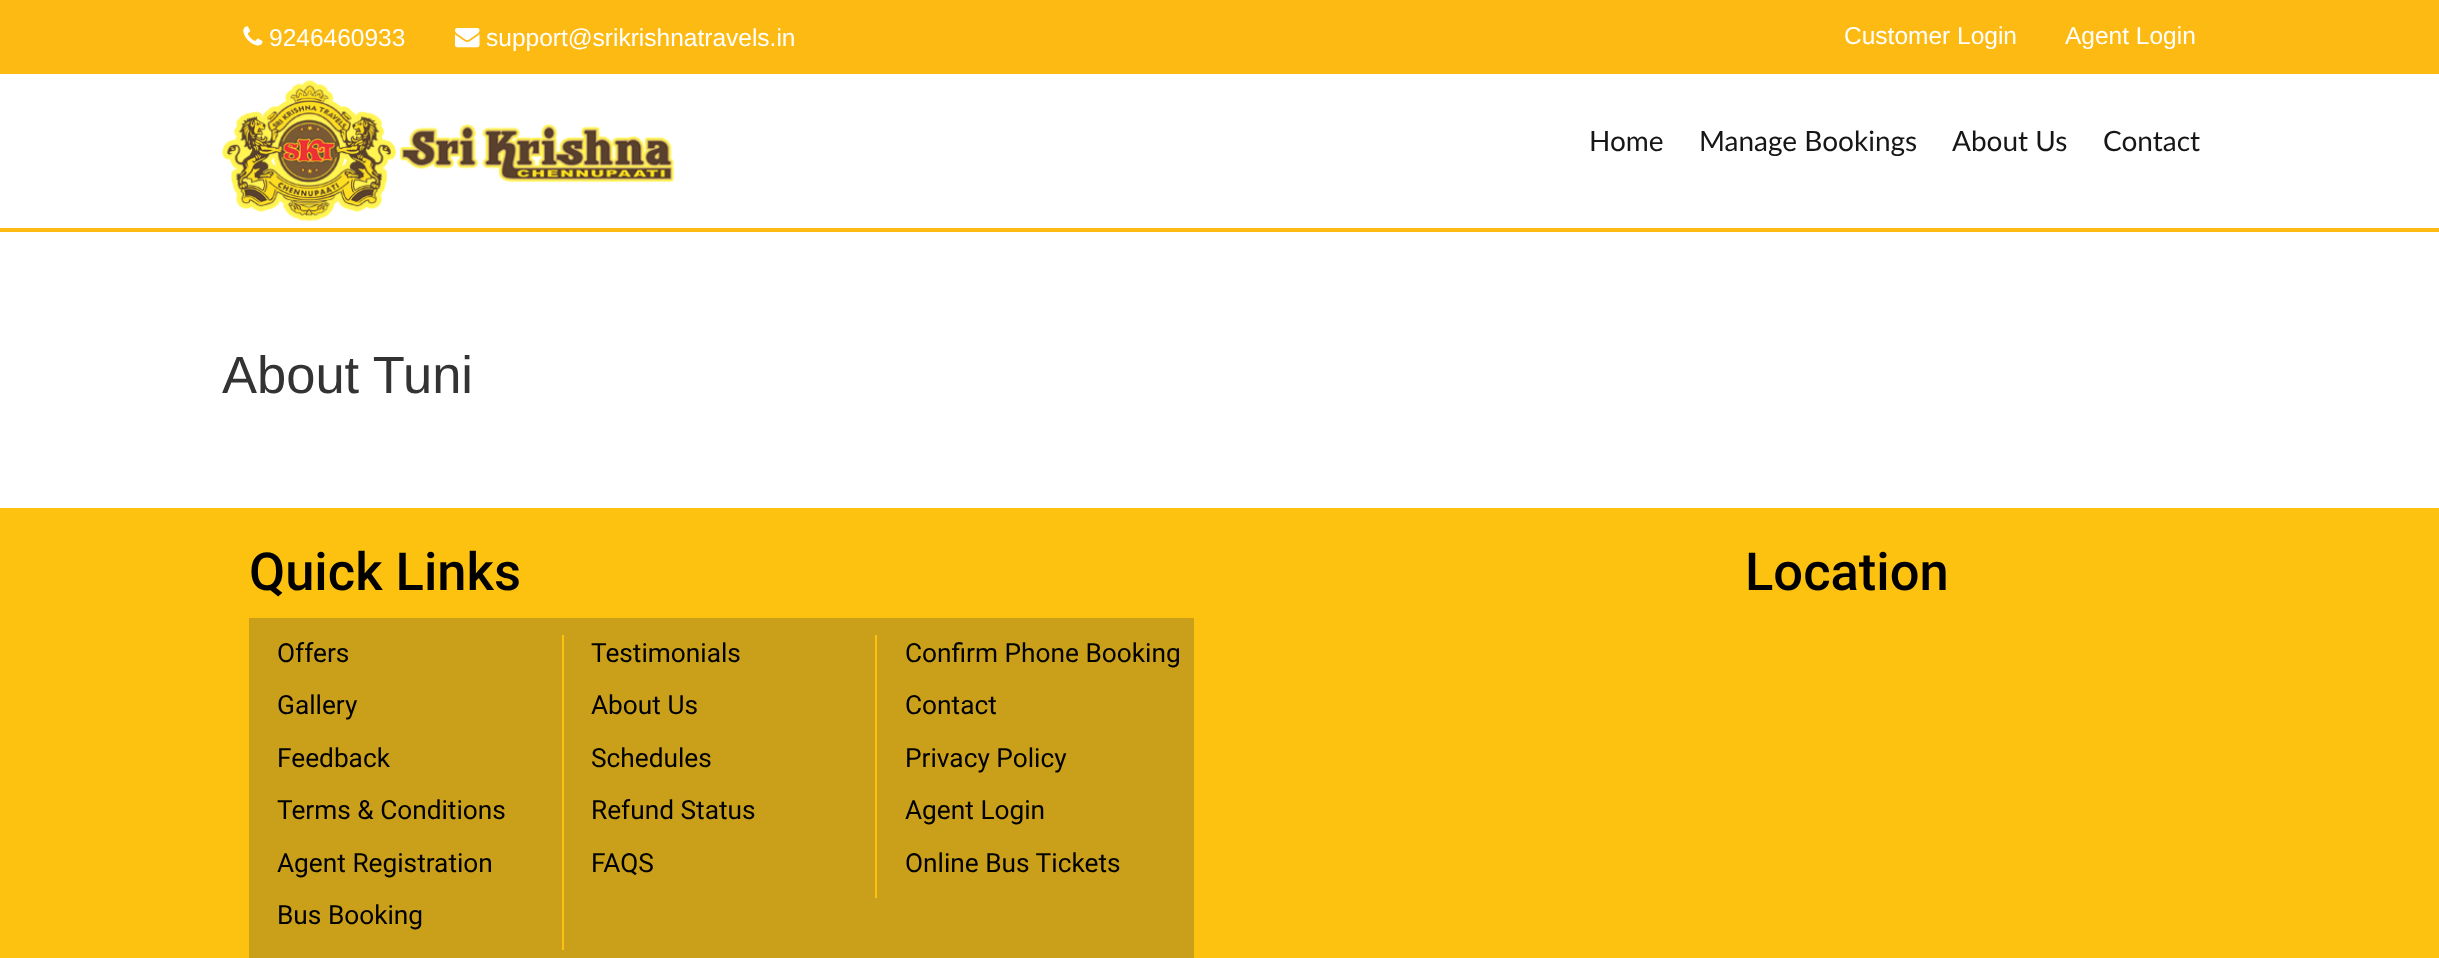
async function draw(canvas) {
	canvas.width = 2439;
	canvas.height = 958;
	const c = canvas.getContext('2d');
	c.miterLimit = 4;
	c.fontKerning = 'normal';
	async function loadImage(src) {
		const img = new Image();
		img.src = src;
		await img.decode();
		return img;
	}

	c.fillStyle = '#fff';
	c.fillRect(0, 0, 2439, 958);
	c.fillStyle = '#fdba13';
	c.fillRect(0, 228, 2439, 4);
	c.fillRect(0, 0, 2439, 74);
	c.drawImage(await loadImage('img1.png'), 243, 26, 20, 20);
	c.font = '24.5px Liberation Sans';
	c.fillStyle = '#fff';
	c.fillText('9246460933', 269, 46);
	c.drawImage(await loadImage('img2.png'), 455, 28, 25, 20);
	for (const [text, x, y] of [
		['support@srikrishnatravels.in', 486, 46],
		['Customer Login', 1844, 44],
		['Agent Login', 2065, 44],
	]) {
		c.fillText(text, x, y);
	}
	c.drawImage(await loadImage('img3.png'), 222, 80, 452, 141);
	c.font = '28px Lato';
	c.fillStyle = '#161616';
	for (const [text, x, y] of [
		['Home', 1589, 151],
		['Manage Bookings', 1699, 151],
		['About Us', 1952, 151],
		['Contact', 2103, 151],
	]) {
		c.fillText(text, x, y);
	}
	c.font = '52.5px Liberation Sans';
	c.fillStyle = '#333';
	c.fillText('About Tuni', 222, 393);
	c.fillStyle = '#fdc210';
	c.fillRect(0, 508, 2439, 450);
	c.font = '500 52.5px Roboto';
	c.fillStyle = '#000';
	c.fillText('Quick Links', 249, 590);
	c.fillStyle = '#caa01a';
	c.fillRect(249, 618, 945, 340);
	c.fillStyle = '#fdc210';
	c.fillRect(562, 635, 2, 315);
	c.font = '26.25px Roboto';
	c.fillStyle = '#000';
	c.fillText('Offers', 277, 662);
	c.fillStyle = '#fdc210';
	c.fillRect(875, 635, 2, 263);
	c.fillStyle = '#000';
	for (const [text, x, y] of [
		['Testimonials', 591, 662],
		['Confirm Phone Booking', 905, 662],
		['Gallery', 277, 714],
		['About Us', 591, 714],
		['Contact', 905, 714],
		['Feedback', 277, 767],
		['Schedules', 591, 767],
		['Privacy Policy', 905, 767],
		['Terms & Conditions', 277, 819],
		['Refund Status', 591, 819],
		['Agent Login', 905, 819],
		['Agent Registration', 277, 872],
		['FAQS', 591, 872],
		['Online Bus Tickets', 905, 872],
		['Bus Booking', 277, 924],
	]) {
		c.fillText(text, x, y);
	}
	c.font = '500 52.5px Roboto';
	c.fillText('Location', 1745, 590);
}

draw(document.querySelector('canvas'));
